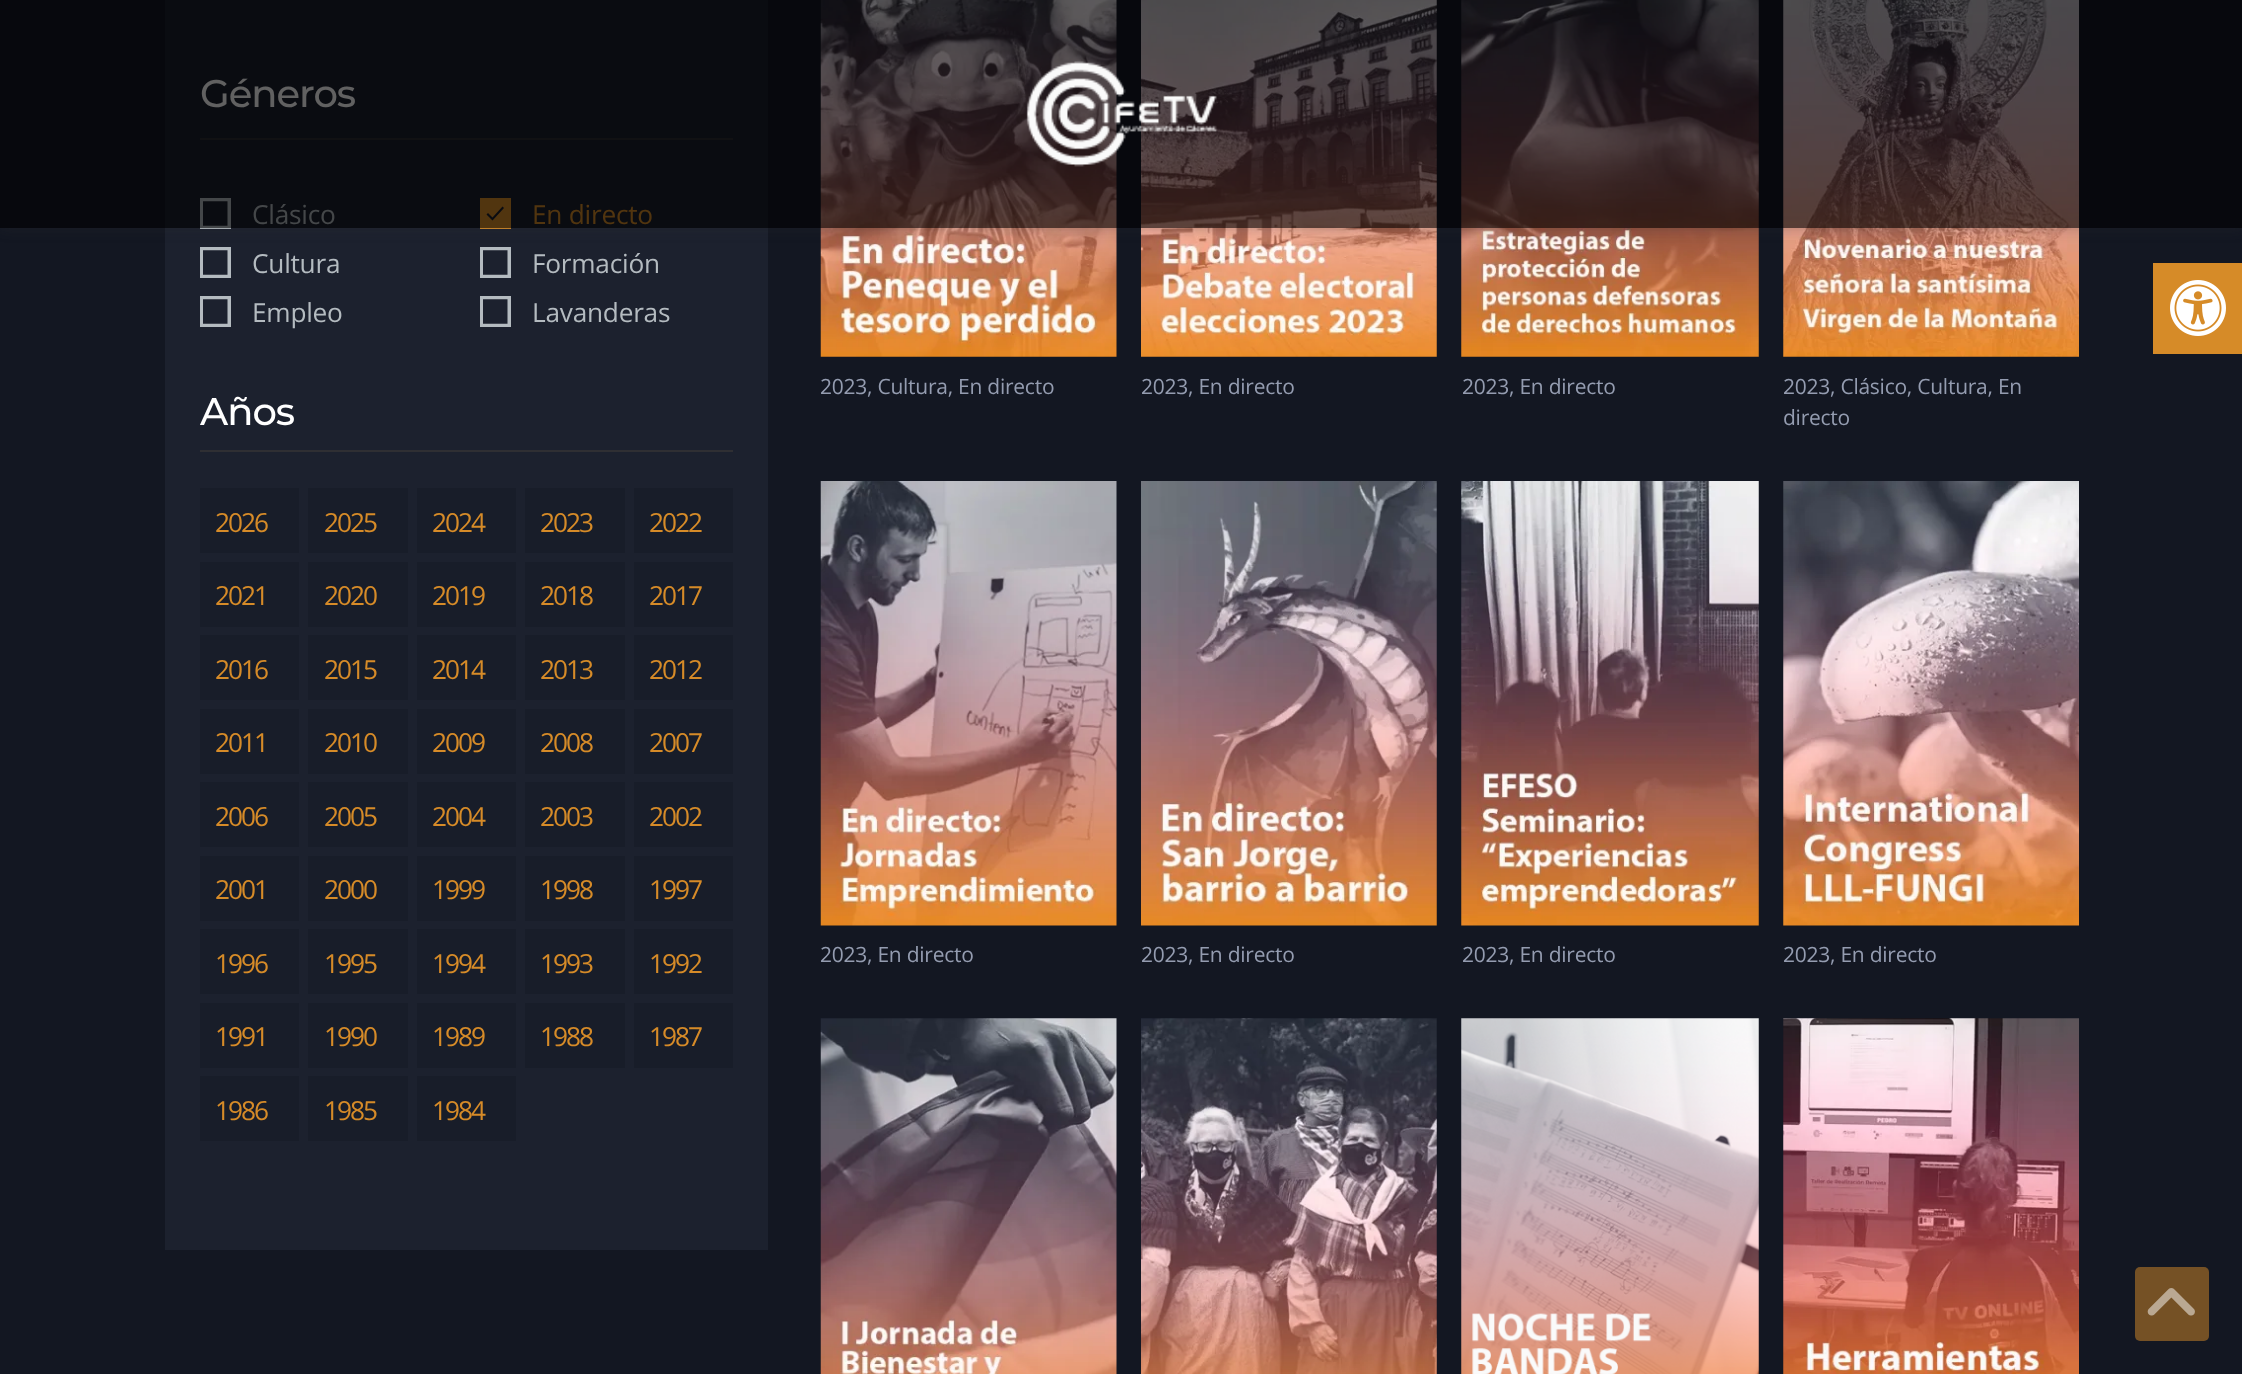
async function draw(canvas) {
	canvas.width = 2242;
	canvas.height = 1374;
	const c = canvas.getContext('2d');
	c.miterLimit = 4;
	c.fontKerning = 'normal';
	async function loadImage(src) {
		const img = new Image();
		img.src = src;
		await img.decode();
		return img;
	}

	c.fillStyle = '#131722';
	c.fillRect(0, 0, 2242, 1374);
	c.fillStyle = '#1c212e';
	c.fillRect(165, 0, 603, 1250);
	c.fillStyle = '#2f2f33';
	c.fillRect(200, 138, 533, 2);
	c.drawImage(await loadImage('img2.png'), 200, 198, 31, 31);
	c.save();
	c.beginPath();
	c.rect(480, 198, 31, 31);
	c.clip();
	c.fillStyle = '#d68b28';
	c.beginPath();
	c.moveTo(479.5, 229);
	c.lineTo(479.5, 198);
	c.lineTo(511, 198);
	c.lineTo(511, 229);
	c.closePath();
	c.moveTo(503, 207);
	c.lineTo(502.5, 206.5);
	c.lineTo(492.5, 217.5);
	c.lineTo(488, 213);
	c.lineTo(486.5, 214.5);
	c.lineTo(492.5, 220.5);
	c.lineTo(504, 208);
	c.closePath();
	c.fill();
	c.restore();
	c.drawImage(await loadImage('img2.png'), 200, 247, 31, 31);
	c.drawImage(await loadImage('img2.png'), 480, 247, 31, 31);
	c.drawImage(await loadImage('img3.png'), 820, 0, 297, 357);
	c.drawImage(await loadImage('img4.png'), 1141, 0, 296, 357);
	c.drawImage(await loadImage('img5.png'), 1461, 0, 298, 357);
	c.drawImage(await loadImage('img6.png'), 1783, 0, 296, 357);
	c.save();
	c.beginPath();
	c.moveTo(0, 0);
	c.lineTo(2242, 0);
	c.lineTo(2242, 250);
	c.lineTo(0, 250);
	c.closePath();
	c.moveTo(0, 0);
	c.lineTo(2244, 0);
	c.lineTo(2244, 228);
	c.lineTo(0, 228);
	c.closePath();
	c.clip('evenodd');
	c.fillStyle = '#3333334d';
	c.filter = 'blur(7px)';
	c.beginPath();
	c.rect(0, 0, 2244, 228);
	c.fill();
	c.filter = 'none';
	c.restore();
	c.letterSpacing = '-1px';
	c.font = '500 38.5px Montserrat';
	c.fillStyle = '#fff';
	c.fillText('Géneros', 200, 107);
	c.letterSpacing = '-0.25px';
	c.font = '26.25px Open Sans';
	c.fillStyle = '#b4bbc0';
	c.fillText('Clásico', 252, 224);
	c.fillStyle = '#d68b28';
	c.fillText('En directo', 532, 224);
	c.fillStyle = '#0000009e';
	c.fillRect(0, 0, 2242, 228);
	c.drawImage(await loadImage('img1.png'), 1026, 61, 191, 106);
	c.fillStyle = '#b4bbc0';
	c.fillText('Cultura', 252, 273);
	c.fillText('Formación', 532, 273);
	c.drawImage(await loadImage('img2.png'), 200, 296, 31, 31);
	c.fillText('Empleo', 252, 322);
	c.drawImage(await loadImage('img2.png'), 480, 296, 31, 31);
	c.fillText('Lavanderas', 532, 322);
	c.fillStyle = '#2f2f33';
	c.fillRect(200, 450, 533, 2);
	c.letterSpacing = '-1px';
	c.font = '500 38.5px Montserrat';
	c.fillStyle = '#fff';
	c.fillText('Años', 200, 425);
	c.fillStyle = '#181d29';
	c.fillRect(200, 488, 99, 65);
	c.letterSpacing = '-2px';
	c.font = '26.25px Open Sans';
	c.fillStyle = '#d68b28';
	c.fillText('2026', 215, 532);
	c.fillStyle = '#181d29';
	c.fillRect(308, 488, 100, 65);
	c.fillStyle = '#d68b28';
	c.fillText('2025', 324, 532);
	c.fillStyle = '#181d29';
	c.fillRect(417, 488, 99, 65);
	c.fillStyle = '#d68b28';
	c.fillText('2024', 432, 532);
	c.fillStyle = '#181d29';
	c.fillRect(525, 488, 100, 65);
	c.fillStyle = '#d68b28';
	c.fillText('2023', 540, 532);
	c.fillStyle = '#181d29';
	c.fillRect(634, 488, 99, 65);
	c.fillStyle = '#d68b28';
	c.fillText('2022', 649, 532);
	c.fillStyle = '#181d29';
	c.fillRect(200, 562, 99, 65);
	c.fillStyle = '#d68b28';
	c.fillText('2021', 215, 605);
	c.fillStyle = '#181d29';
	c.fillRect(308, 562, 100, 65);
	c.fillStyle = '#d68b28';
	c.fillText('2020', 324, 605);
	c.fillStyle = '#181d29';
	c.fillRect(417, 562, 99, 65);
	c.fillStyle = '#d68b28';
	c.fillText('2019', 432, 605);
	c.fillStyle = '#181d29';
	c.fillRect(525, 562, 100, 65);
	c.fillStyle = '#d68b28';
	c.fillText('2018', 540, 605);
	c.fillStyle = '#181d29';
	c.fillRect(634, 562, 99, 65);
	c.fillStyle = '#d68b28';
	c.fillText('2017', 649, 605);
	c.fillStyle = '#181d29';
	c.fillRect(200, 635, 99, 65);
	c.fillStyle = '#d68b28';
	c.fillText('2016', 215, 679);
	c.fillStyle = '#181d29';
	c.fillRect(308, 635, 100, 65);
	c.fillStyle = '#d68b28';
	c.fillText('2015', 324, 679);
	c.fillStyle = '#181d29';
	c.fillRect(417, 635, 99, 65);
	c.fillStyle = '#d68b28';
	c.fillText('2014', 432, 679);
	c.fillStyle = '#181d29';
	c.fillRect(525, 635, 100, 65);
	c.fillStyle = '#d68b28';
	c.fillText('2013', 540, 679);
	c.fillStyle = '#181d29';
	c.fillRect(634, 635, 99, 65);
	c.fillStyle = '#d68b28';
	c.fillText('2012', 649, 679);
	c.fillStyle = '#181d29';
	c.fillRect(200, 709, 99, 65);
	c.fillStyle = '#d68b28';
	c.fillText('2011', 215, 752);
	c.fillStyle = '#181d29';
	c.fillRect(308, 709, 100, 65);
	c.fillStyle = '#d68b28';
	c.fillText('2010', 324, 752);
	c.fillStyle = '#181d29';
	c.fillRect(417, 709, 99, 65);
	c.fillStyle = '#d68b28';
	c.fillText('2009', 432, 752);
	c.fillStyle = '#181d29';
	c.fillRect(525, 709, 100, 65);
	c.fillStyle = '#d68b28';
	c.fillText('2008', 540, 752);
	c.fillStyle = '#181d29';
	c.fillRect(634, 709, 99, 65);
	c.fillStyle = '#d68b28';
	c.fillText('2007', 649, 752);
	c.fillStyle = '#181d29';
	c.fillRect(200, 782, 99, 65);
	c.fillStyle = '#d68b28';
	c.fillText('2006', 215, 826);
	c.fillStyle = '#181d29';
	c.fillRect(308, 782, 100, 65);
	c.fillStyle = '#d68b28';
	c.fillText('2005', 324, 826);
	c.fillStyle = '#181d29';
	c.fillRect(417, 782, 99, 65);
	c.fillStyle = '#d68b28';
	c.fillText('2004', 432, 826);
	c.fillStyle = '#181d29';
	c.fillRect(525, 782, 100, 65);
	c.fillStyle = '#d68b28';
	c.fillText('2003', 540, 826);
	c.fillStyle = '#181d29';
	c.fillRect(634, 782, 99, 65);
	c.fillStyle = '#d68b28';
	c.fillText('2002', 649, 826);
	c.fillStyle = '#181d29';
	c.fillRect(200, 856, 99, 65);
	c.fillStyle = '#d68b28';
	c.fillText('2001', 215, 899);
	c.fillStyle = '#181d29';
	c.fillRect(308, 856, 100, 65);
	c.fillStyle = '#d68b28';
	c.fillText('2000', 324, 899);
	c.fillStyle = '#181d29';
	c.fillRect(417, 856, 99, 65);
	c.fillStyle = '#d68b28';
	c.fillText('1999', 432, 899);
	c.fillStyle = '#181d29';
	c.fillRect(525, 856, 100, 65);
	c.fillStyle = '#d68b28';
	c.fillText('1998', 540, 899);
	c.fillStyle = '#181d29';
	c.fillRect(634, 856, 99, 65);
	c.fillStyle = '#d68b28';
	c.fillText('1997', 649, 899);
	c.fillStyle = '#181d29';
	c.fillRect(200, 929, 99, 65);
	c.fillStyle = '#d68b28';
	c.fillText('1996', 215, 973);
	c.fillStyle = '#181d29';
	c.fillRect(308, 929, 100, 65);
	c.fillStyle = '#d68b28';
	c.fillText('1995', 324, 973);
	c.fillStyle = '#181d29';
	c.fillRect(417, 929, 99, 65);
	c.fillStyle = '#d68b28';
	c.fillText('1994', 432, 973);
	c.fillStyle = '#181d29';
	c.fillRect(525, 929, 100, 65);
	c.fillStyle = '#d68b28';
	c.fillText('1993', 540, 973);
	c.fillStyle = '#181d29';
	c.fillRect(634, 929, 99, 65);
	c.fillStyle = '#d68b28';
	c.fillText('1992', 649, 973);
	c.fillStyle = '#181d29';
	c.fillRect(200, 1003, 99, 65);
	c.fillStyle = '#d68b28';
	c.fillText('1991', 215, 1046);
	c.fillStyle = '#181d29';
	c.fillRect(308, 1003, 100, 65);
	c.fillStyle = '#d68b28';
	c.fillText('1990', 324, 1046);
	c.fillStyle = '#181d29';
	c.fillRect(417, 1003, 99, 65);
	c.fillStyle = '#d68b28';
	c.fillText('1989', 432, 1046);
	c.fillStyle = '#181d29';
	c.fillRect(525, 1003, 100, 65);
	c.fillStyle = '#d68b28';
	c.fillText('1988', 540, 1046);
	c.fillStyle = '#181d29';
	c.fillRect(634, 1003, 99, 65);
	c.fillStyle = '#d68b28';
	c.fillText('1987', 649, 1046);
	c.fillStyle = '#181d29';
	c.fillRect(200, 1076, 99, 65);
	c.fillStyle = '#d68b28';
	c.fillText('1986', 215, 1120);
	c.fillStyle = '#181d29';
	c.fillRect(308, 1076, 100, 65);
	c.fillStyle = '#d68b28';
	c.fillText('1985', 324, 1120);
	c.fillStyle = '#181d29';
	c.fillRect(417, 1076, 99, 65);
	c.fillStyle = '#d68b28';
	c.fillText('1984', 432, 1120);
	c.letterSpacing = '-0.25px';
	c.font = '21px Open Sans';
	c.fillStyle = '#949cb0';
	for (const [text, x, y] of [
		['2023, Cultura, En directo', 820, 394],
		['2023, En directo', 1141, 394],
		['2023, En directo', 1462, 394],
		['2023, Clásico, Cultura, En', 1783, 394],
		['directo', 1783, 425],
	]) {
		c.fillText(text, x, y);
	}
	c.drawImage(await loadImage('img7.png'), 820, 481, 297, 445);
	c.fillText('2023, En directo', 820, 962);
	c.drawImage(await loadImage('img8.png'), 1141, 481, 296, 445);
	c.fillText('2023, En directo', 1141, 962);
	c.drawImage(await loadImage('img9.png'), 1461, 481, 298, 445);
	c.fillText('2023, En directo', 1462, 962);
	c.drawImage(await loadImage('img10.png'), 1783, 481, 296, 445);
	c.fillText('2023, En directo', 1783, 962);
	c.drawImage(await loadImage('img11.png'), 820, 1018, 297, 356);
	c.drawImage(await loadImage('img12.png'), 1141, 1018, 296, 356);
	c.drawImage(await loadImage('img13.png'), 1461, 1018, 298, 356);
	c.drawImage(await loadImage('img14.png'), 1783, 1018, 296, 356);
	c.fillStyle = '#d68b28';
	c.fillRect(2153, 263, 89, 91);
	c.drawImage(await loadImage('img15.png'), 2170, 280, 56, 56);
	c.fillStyle = '#755125';
	c.beginPath();
	c.roundRect(2135, 1267, 74, 74, 5);
	c.fill();
	c.drawImage(await loadImage('img16.png'), 2147, 1288, 48, 28);
}

draw(document.querySelector('canvas'));
